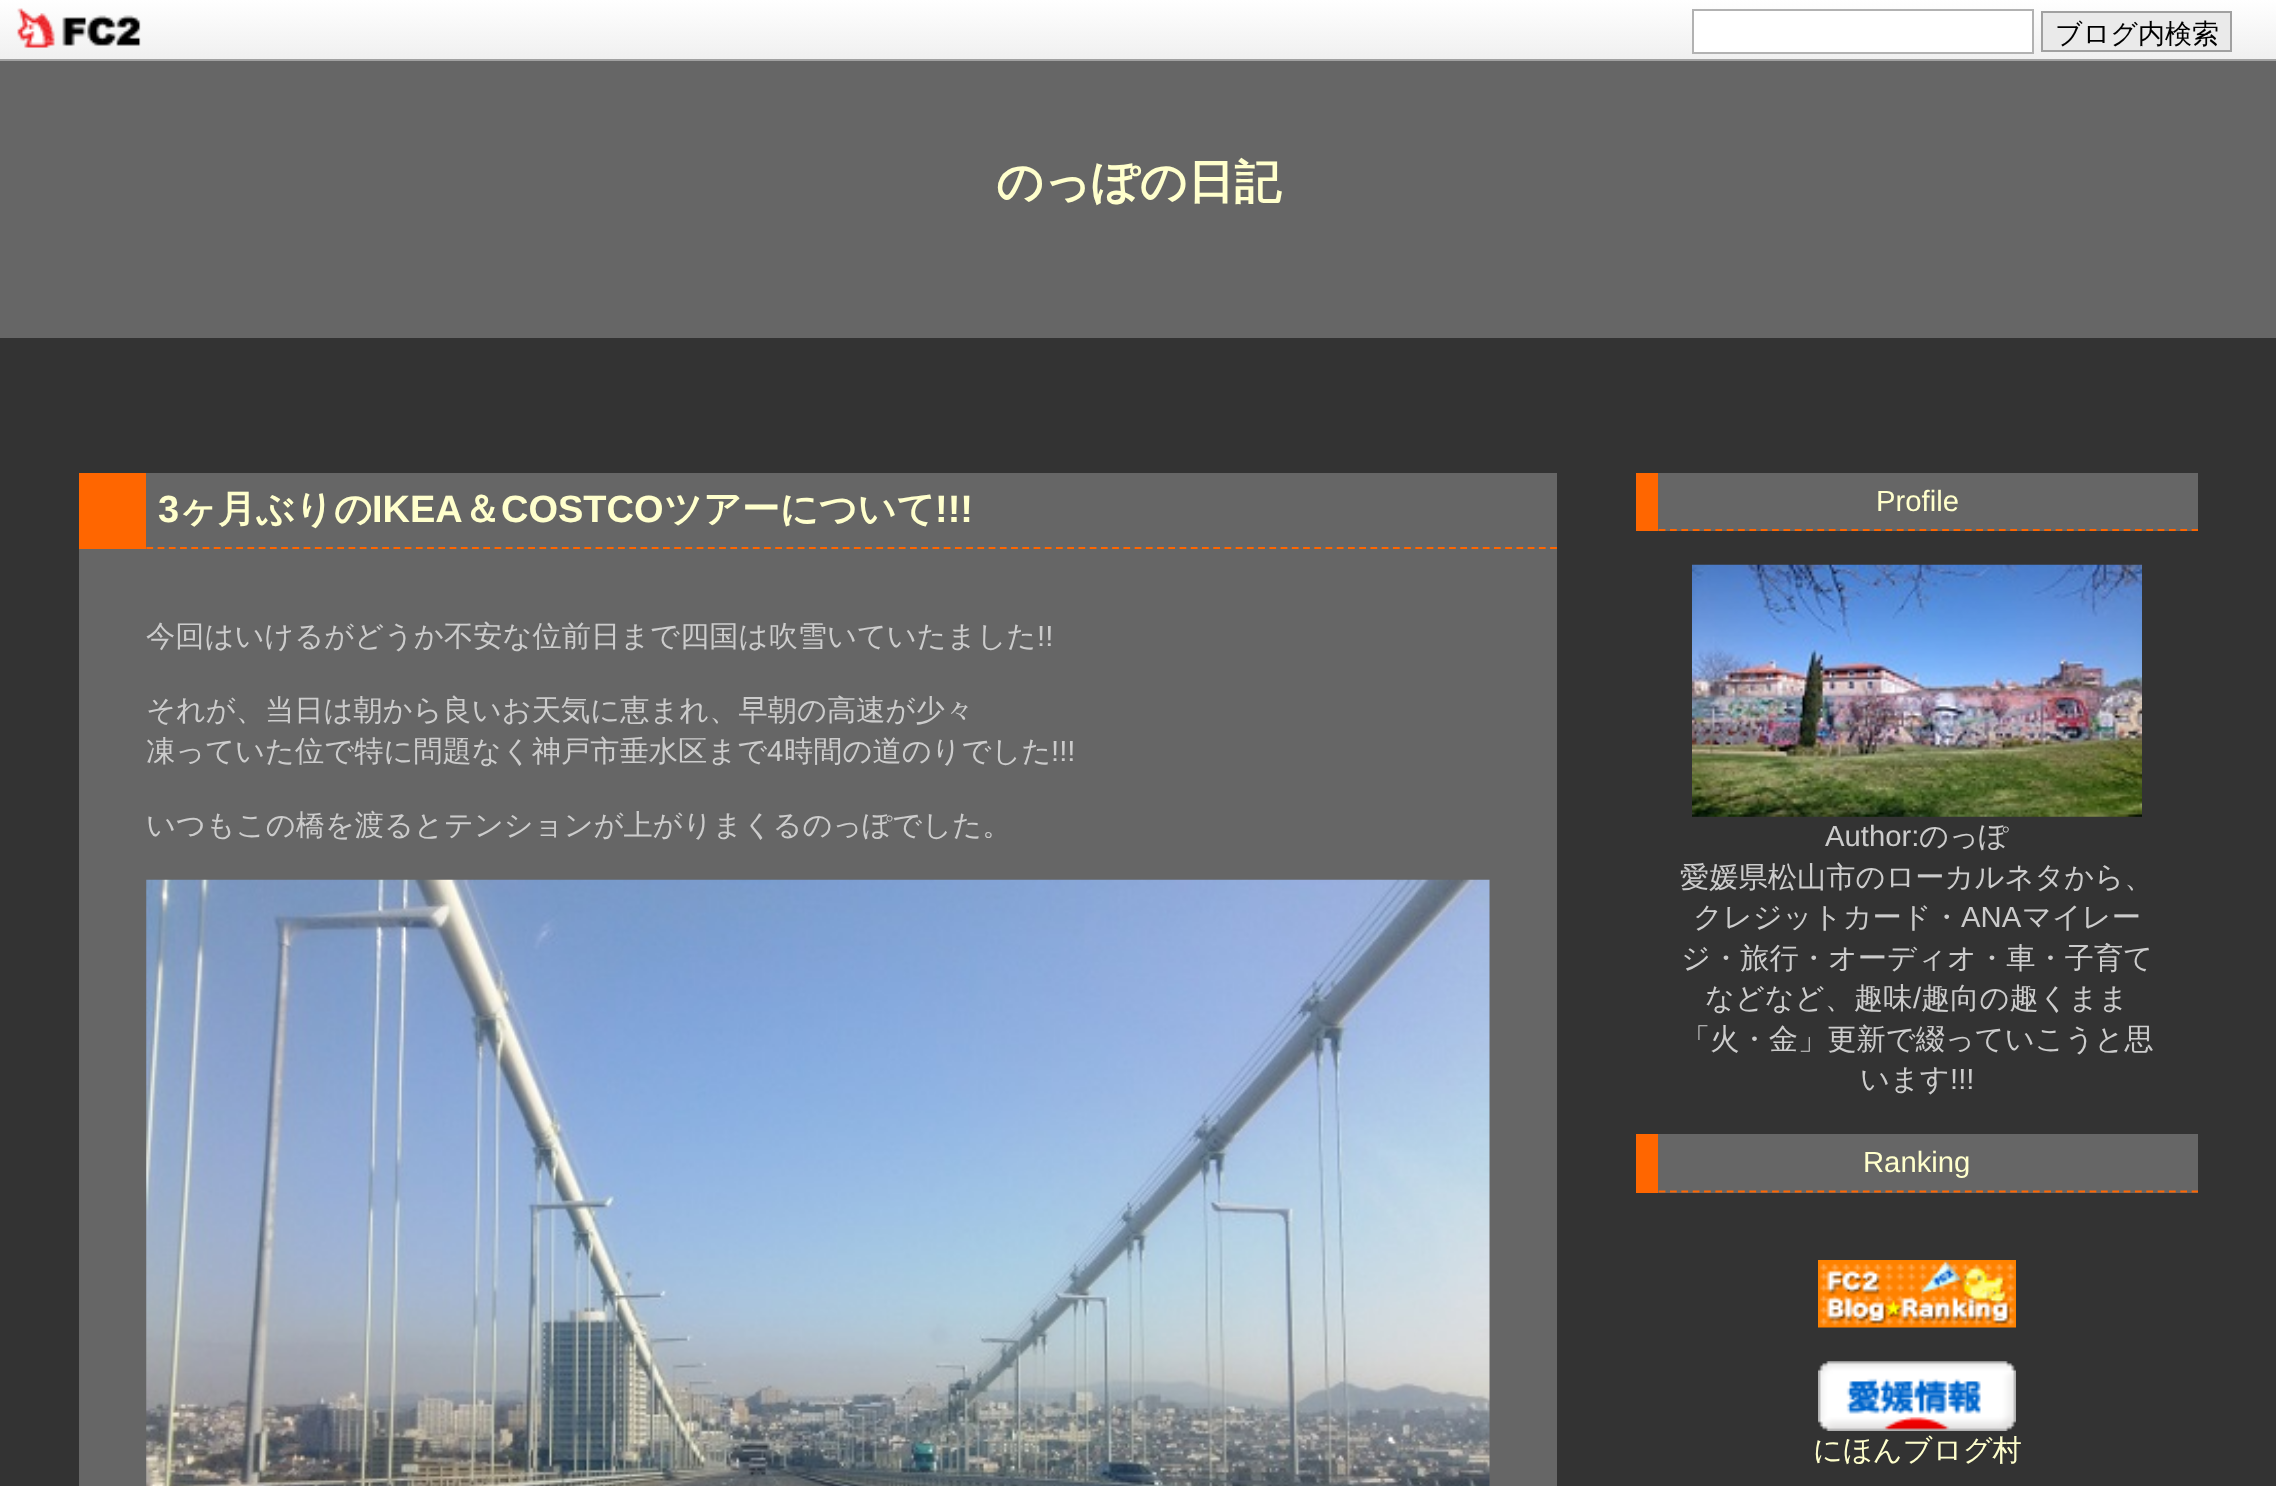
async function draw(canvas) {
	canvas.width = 2276;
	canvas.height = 1486;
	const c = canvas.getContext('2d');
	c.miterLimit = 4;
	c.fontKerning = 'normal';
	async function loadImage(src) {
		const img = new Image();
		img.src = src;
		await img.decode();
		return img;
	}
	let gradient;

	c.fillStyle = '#333';
	c.fillRect(0, 0, 2276, 1486);
	gradient = c.createLinearGradient(0, 0, 0, 59);
	gradient.addColorStop(0, '#fff');
	gradient.addColorStop(1, '#f0f0f0');
	c.fillStyle = gradient;
	c.fillRect(0, 0, 2276, 59);
	c.fillStyle = '#a1a1a1';
	c.fillRect(0, 59, 2276, 2);
	c.drawImage(await loadImage('img1.png'), 17, 8, 124, 40);
	c.fillStyle = '#fff';
	c.beginPath();
	c.rect(1693, 10, 340, 43);
	c.fill();
	c.strokeStyle = '#b2b2b2';
	c.lineWidth = 2;
	c.stroke();
	c.fillStyle = '#eaeaea';
	c.beginPath();
	c.rect(2042, 12, 189, 39);
	c.fill();
	c.strokeStyle = '#a1a1a1';
	c.stroke();
	c.font = '500 27px WenQuanYi Zen Hei';
	c.fillStyle = '#000';
	c.fillText('ブログ内検索', 2055, 43);
	c.fillStyle = '#666';
	c.fillRect(0, 61, 2276, 277);
	c.font = 'bold 46.75px WenQuanYi Zen Hei';
	c.fillStyle = '#ffc';
	c.fillText('のっぽの日記', 996, 198);
	c.fillStyle = '#666';
	c.fillRect(79, 473, 1478, 1013);
	c.beginPath();
	c.moveTo(79, 548);
	c.lineTo(1557, 548);
	c.strokeStyle = '#f60';
	c.lineWidth = 2.2;
	c.setLineDash([6.75, 4.48]);
	c.stroke();
	c.fillStyle = '#f60';
	c.fillRect(79, 473, 67, 76);
	c.font = 'bold 38px Liberation Sans';
	c.fillStyle = '#ffc';
	c.fillText('3', 158, 522);
	c.font = 'bold 38px WenQuanYi Zen Hei';
	c.fillText('ヶ月ぶりの', 179, 522);
	c.font = 'bold 38px Liberation Sans';
	c.fillText('IKEA', 372, 522);
	c.font = 'bold 38px WenQuanYi Zen Hei';
	c.fillText('＆', 463, 522);
	c.font = 'bold 38px Liberation Sans';
	c.fillText('COSTCO', 501, 522);
	c.font = 'bold 38px WenQuanYi Zen Hei';
	c.fillText('ツアーについて', 664, 522);
	c.font = 'bold 38px Liberation Sans';
	c.fillText('!!!', 935, 522);
	c.font = '500 29.25px WenQuanYi Zen Hei';
	c.fillStyle = '#ccc';
	c.fillText('今回はいけるがどうか不安な位前日まで四国は吹雪いていたました', 146, 646);
	c.font = '29.25px Liberation Sans';
	c.fillText('!!', 1037, 646);
	c.font = '500 29.25px WenQuanYi Zen Hei';
	c.fillText('それが、当日は朝から良いお天気に恵まれ、早朝の高速が少々', 146, 720);
	c.fillText('凍っていた位で特に問題なく神戸市垂水区まで', 146, 761);
	c.font = '29.25px Liberation Sans';
	c.fillText('4', 767, 761);
	c.font = '500 29.25px WenQuanYi Zen Hei';
	c.fillText('時間の道のりでした', 784, 761);
	c.font = '29.25px Liberation Sans';
	c.fillText('!!!', 1051, 761);
	c.font = '500 29.25px WenQuanYi Zen Hei';
	c.fillText('いつもこの橋を渡るとテンションが上がりまくるのっぽでした。', 146, 835);
	c.drawImage(await loadImage('img2.png'), 146, 879, 1344, 607);
	c.fillStyle = '#666';
	c.fillRect(1658, 473, 540, 58);
	c.beginPath();
	c.moveTo(1636, 530);
	c.lineTo(2198, 530);
	c.setLineDash([6.75, 4.59]);
	c.stroke();
	c.fillStyle = '#f60';
	c.fillRect(1636, 473, 22, 58);
	c.font = '29.25px Liberation Sans';
	c.fillStyle = '#ffc';
	c.fillText('Profile', 1876, 511);
	c.drawImage(await loadImage('img3.png'), 1692, 564, 450, 253);
	c.fillStyle = '#ccc';
	c.fillText('Author:', 1825, 846);
	c.font = '500 29.25px WenQuanYi Zen Hei';
	for (const [text, x, y] of [
		['のっぽ', 1919, 846],
		['愛媛県松山市のローカルネタから、', 1680, 887],
		['クレジットカード・', 1693, 927],
	]) {
		c.fillText(text, x, y);
	}
	c.font = '29.25px Liberation Sans';
	c.fillText('ANA', 1961, 927);
	c.font = '500 29.25px WenQuanYi Zen Hei';
	for (const [text, x, y] of [
		['マイレー', 2022, 927],
		['ジ・旅行・オーディオ・車・子育て', 1681, 968],
		['などなど、趣味', 1705, 1008],
	]) {
		c.fillText(text, x, y);
	}
	c.font = '29.25px Liberation Sans';
	c.fillText('/', 1913, 1008);
	c.font = '500 29.25px WenQuanYi Zen Hei';
	for (const [text, x, y] of [
		['趣向の趣くまま', 1921, 1008],
		['「火・金」更新で綴っていこうと思', 1681, 1049],
		['います', 1860, 1089],
	]) {
		c.fillText(text, x, y);
	}
	c.font = '29.25px Liberation Sans';
	c.fillText('!!!', 1950, 1089);
	c.fillStyle = '#666';
	c.fillRect(1658, 1134, 540, 59);
	c.beginPath();
	c.moveTo(1636, 1191.5);
	c.lineTo(2198, 1191.5);
	c.stroke();
	c.fillStyle = '#f60';
	c.fillRect(1636, 1134, 22, 59);
	c.fillStyle = '#ffc';
	c.fillText('Ranking', 1863, 1172);
	c.drawImage(await loadImage('img4.png'), 1818, 1260, 198, 68);
	c.drawImage(await loadImage('img5.png'), 1818, 1361, 198, 70);
	c.font = '500 29.25px WenQuanYi Zen Hei';
	c.fillText('にほんブログ村', 1813, 1460);
}

draw(document.querySelector('canvas'));
